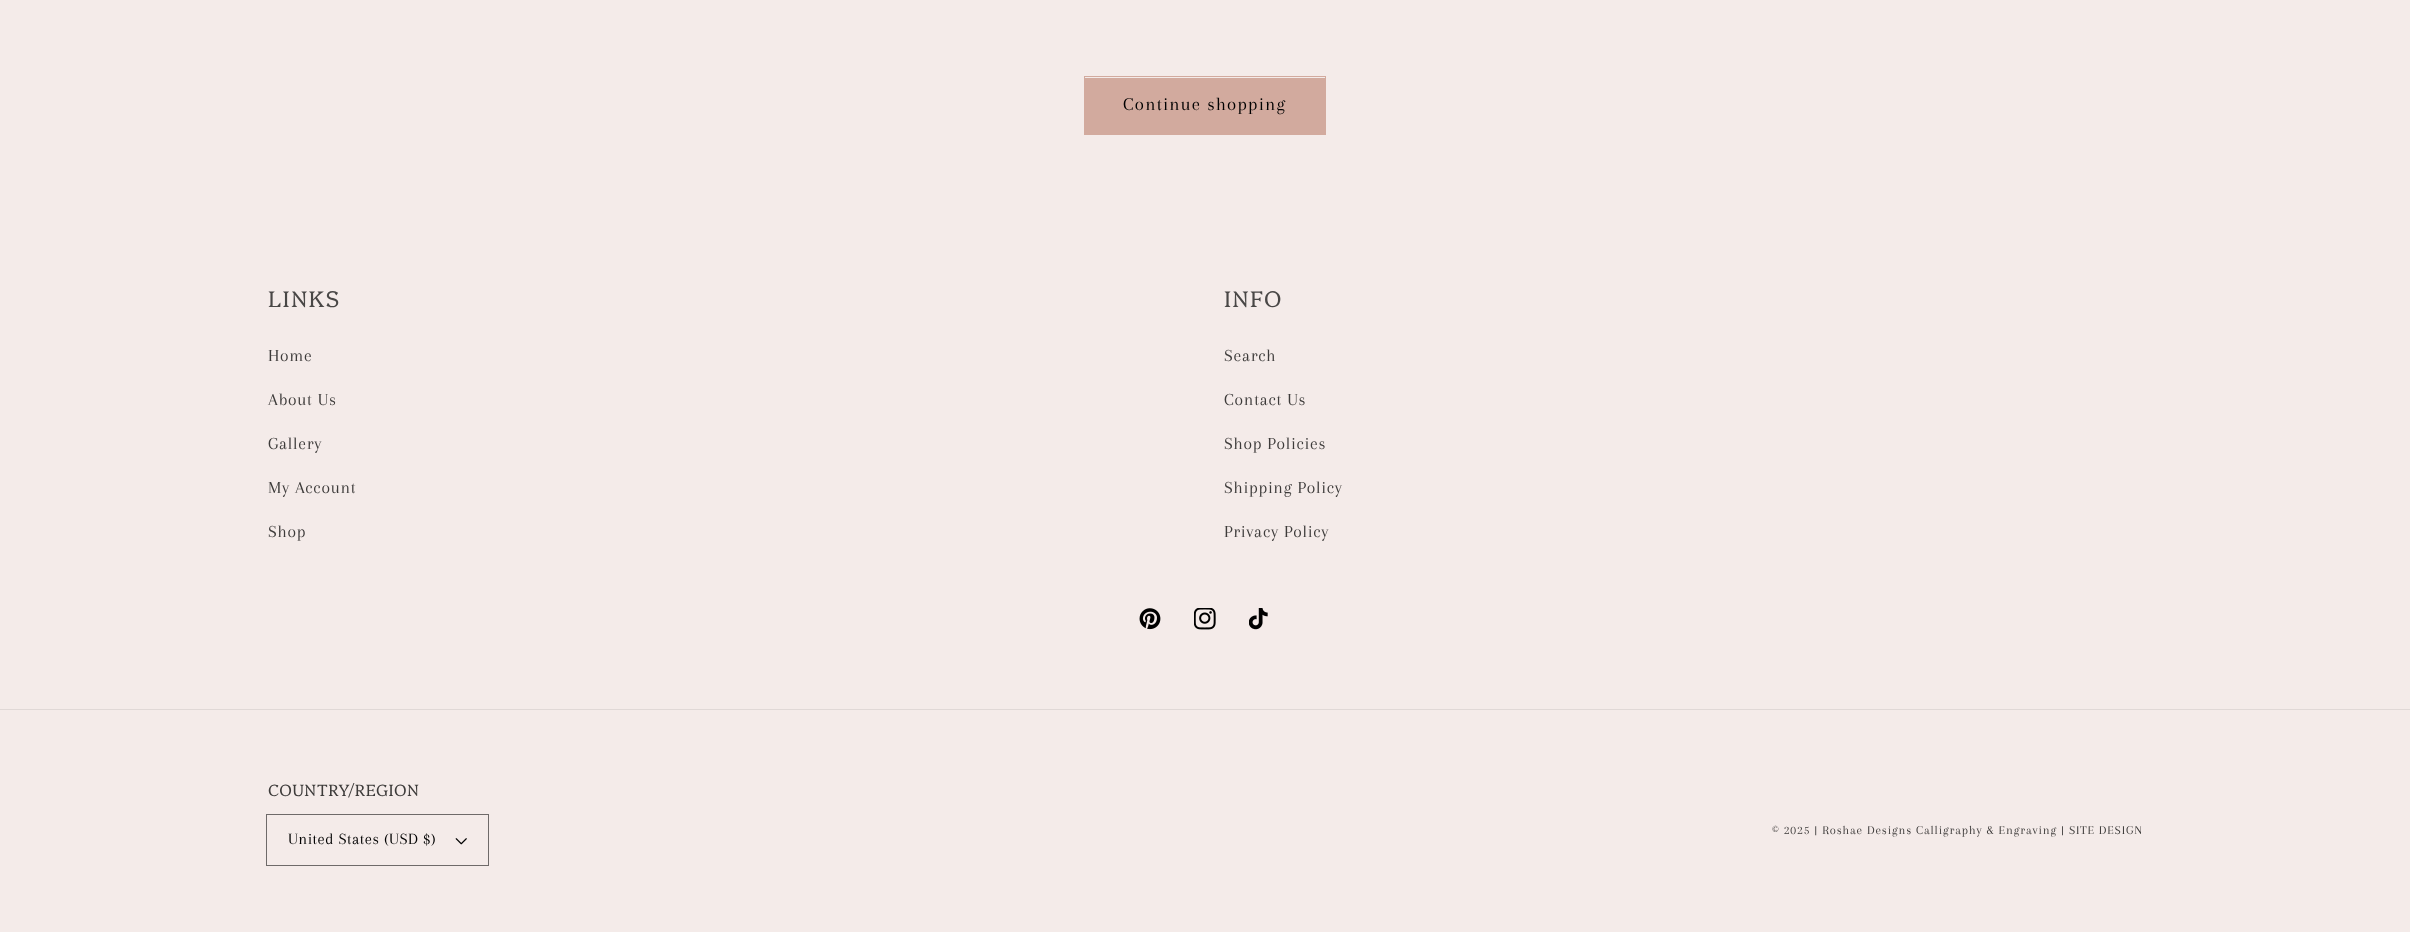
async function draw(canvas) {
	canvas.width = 2410;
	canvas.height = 932;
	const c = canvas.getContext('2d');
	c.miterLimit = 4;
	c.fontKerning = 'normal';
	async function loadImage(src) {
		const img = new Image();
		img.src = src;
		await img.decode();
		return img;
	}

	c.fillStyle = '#f4ebe9';
	c.fillRect(0, 0, 2410, 932);
	c.strokeStyle = '#d2aa9e';
	c.strokeRect(1084.5, 76.5, 241, 58);
	c.fillStyle = '#d2aa9e';
	c.fillRect(1085, 78, 240, 56);
	c.letterSpacing = '1.25px';
	c.font = '18.75px Arapey';
	c.fillStyle = '#000';
	c.fillText('Continue shopping', 1123, 110);
	c.font = '300 22.5px Platypi';
	c.fillStyle = '#494746';
	c.fillText('LINKS', 268, 307);
	c.letterSpacing = '0.75px';
	c.font = '17.5px Arapey';
	c.fillStyle = '#3d3b3a';
	for (const [text, x, y] of [
		['Home', 268, 361],
		['About Us', 268, 405],
		['Gallery', 268, 449],
		['My Account', 268, 493],
		['Shop', 268, 537],
	]) {
		c.fillText(text, x, y);
	}
	c.letterSpacing = '1.25px';
	c.font = '300 22.5px Platypi';
	c.fillStyle = '#494746';
	c.fillText('INFO', 1224, 307);
	c.letterSpacing = '0.75px';
	c.font = '17.5px Arapey';
	c.fillStyle = '#3d3b3a';
	for (const [text, x, y] of [
		['Search', 1224, 361],
		['Contact Us', 1224, 405],
		['Shop Policies', 1224, 449],
		['Shipping Policy', 1224, 493],
		['Privacy Policy', 1224, 537],
	]) {
		c.fillText(text, x, y);
	}
	c.drawImage(await loadImage('img1.png'), 1139, 608, 22, 22);
	c.drawImage(await loadImage('img2.png'), 1194, 608, 22, 22);
	c.drawImage(await loadImage('img3.png'), 1249, 608, 19, 22);
	c.fillStyle = '#e0d8d6';
	c.fillRect(0, 709, 2410, 1);
	c.letterSpacing = '0.5px';
	c.font = '300 16.25px Platypi';
	c.fillStyle = '#3d3b3a';
	c.fillText('COUNTRY/REGION', 268, 796);
	c.strokeStyle = '#6e6a69';
	c.strokeRect(266.5, 814.5, 222, 51);
	c.font = '16.25px Arapey';
	c.fillStyle = '#000';
	c.fillText('United States (USD $)', 288, 844);
	c.drawImage(await loadImage('img4.png'), 455, 838, 12, 7);
	c.letterSpacing = '0.88px';
	c.font = '12.5px Arapey';
	c.fillStyle = '#3d3b3a';
	c.fillText('© 2025 | Roshae Designs Calligraphy & Engraving | SITE DESIGN', 1772, 834);
}

draw(document.querySelector('canvas'));
